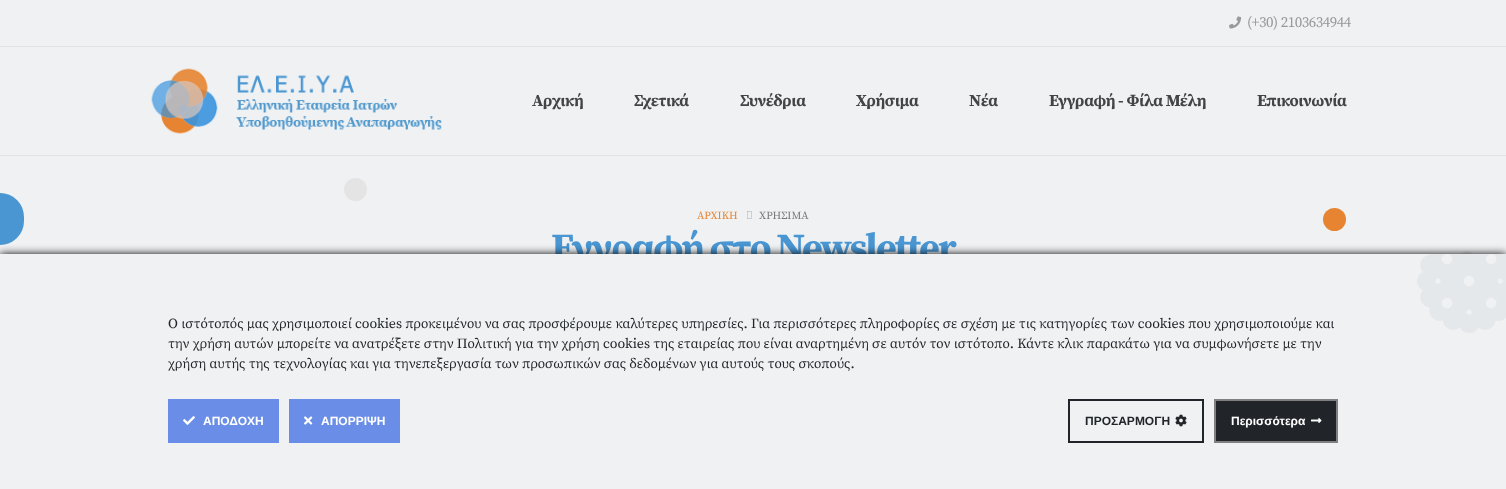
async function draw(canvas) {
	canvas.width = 1506;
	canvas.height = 489;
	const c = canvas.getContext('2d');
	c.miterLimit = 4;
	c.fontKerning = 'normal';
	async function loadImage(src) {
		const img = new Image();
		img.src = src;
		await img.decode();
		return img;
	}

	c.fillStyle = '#eff1f3';
	c.fillRect(0, 0, 1506, 489);
	c.fillStyle = '#e1e3e5';
	c.fillRect(0, 155, 1506, 1);
	c.fillStyle = '#e1e3e4';
	c.fillRect(0, 46, 1506, 1);
	c.drawImage(await loadImage('img1.png'), 1229, 16, 13, 13);
	c.letterSpacing = '-0.5px';
	c.font = '15px Source Serif Pro';
	c.fillStyle = '#999';
	c.fillText('(+30) 2103634944', 1247, 27);
	c.drawImage(await loadImage('img2.png'), 151, 68, 291, 66);
	c.font = 'bold 16.75px Source Serif Pro';
	c.fillStyle = '#444';
	for (const [text, x, y] of [
		['Αρχική', 532, 106],
		['Σχετικά', 634, 106],
		['Συνέδρια', 740, 106],
		['Χρήσιμα', 856, 106],
		['Νέα', 969, 106],
		['Εγγραφή - Φίλα Μέλη', 1049, 106],
		['Επικοινωνία', 1257, 106],
	]) {
		c.fillText(text, x, y);
	}
	c.fillStyle = '#e4e4e4';
	c.beginPath();
	c.arc(355.5, 189.5, 11.5, 0, 2 * Math.PI);
	c.fill();
	c.fillStyle = '#4996d2';
	c.beginPath();
	c.roundRect(0, 193, 24, 52, [0, 26, 26, 0]);
	c.fill();
	c.letterSpacing = '0px';
	c.font = '11px Source Serif Pro';
	c.fillStyle = '#e68431';
	c.fillText('ΑΡΧΙΚΗ', 697, 219);
	c.drawImage(await loadImage('img3.png'), 747, 211, 5, 8);
	c.fillStyle = '#777';
	c.fillText('ΧΡΗΣΙΜΑ', 759, 219);
	c.letterSpacing = '-2px';
	c.font = 'bold 40px Source Serif Pro';
	c.fillStyle = '#4996d2';
	c.fillText('Εγγραφή στο Newsletter', 551, 261);
	c.fillStyle = '#e68431';
	c.beginPath();
	c.arc(1334.5, 219.5, 11.5, 0, 2 * Math.PI);
	c.fill();
	c.fillStyle = '#e4e4e4';
	c.beginPath();
	c.arc(1467.5, 258.5, 7.5, 0, 2 * Math.PI);
	c.fill();
	c.fillStyle = '#000';
	c.filter = 'blur(4px)';
	c.beginPath();
	c.rect(0, 254, 1506, 235);
	c.fill();
	c.filter = 'none';
	c.fillStyle = '#eff1f3';
	c.fillRect(0, 254, 1506, 235);
	c.drawImage(await loadImage('img4.png'), 1417, 254, 89, 79);
	c.letterSpacing = '0px';
	c.font = '14px Source Serif Pro';
	c.fillStyle = '#212529';
	for (const [text, x, y] of [
		['Ο ιστότοπός μας χρησιμοποιεί cookies προκειμένου να σας προσφέρουμε καλύτερες υπηρεσίες. Για περισσότερες πληροφορίες σε σχέση με τις κατηγορίες των cookies που χρησιμοποιούμε και', 168, 328],
		['την χρήση αυτών μπορείτε να ανατρέξετε στην Πολιτική για την χρήση cookies της εταιρείας που είναι αναρτημένη σε αυτόν τον ιστότοπο. Κάντε κλικ παρακάτω για να συμφωνήσετε με την', 168, 348],
		['χρήση αυτής της τεχνολογίας και για τηνεπεξεργασία των προσωπικών σας δεδομένων για αυτούς τους σκοπούς.', 168, 368],
	]) {
		c.fillText(text, x, y);
	}
	c.fillStyle = '#6a8ee7';
	c.fillRect(168, 399, 111, 44);
	c.drawImage(await loadImage('img5.png'), 183, 416, 12, 9);
	c.font = 'bold 12px Liberation Sans';
	c.fillStyle = '#fff';
	c.fillText('ΑΠΟΔΟΧΗ', 203, 425);
	c.fillStyle = '#6a8ee7';
	c.fillRect(289, 399, 111, 44);
	c.drawImage(await loadImage('img6.png'), 304, 416, 9, 9);
	c.fillStyle = '#fff';
	c.fillText('ΑΠΟΡΡΙΨΗ', 321, 425);
	c.strokeStyle = '#212529';
	c.lineWidth = 2;
	c.strokeRect(1069, 400, 134, 42);
	c.fillStyle = '#212529';
	c.fillText('ΠΡΟΣΑΡΜΟΓΗ', 1085, 425);
	c.drawImage(await loadImage('img7.png'), 1175, 414, 12, 13);
	c.beginPath();
	c.rect(1215, 400, 122, 42);
	c.fill();
	c.strokeStyle = '#808080';
	c.stroke();
	c.fillStyle = '#fff';
	c.fillText('Περισσότερα', 1231, 425);
	c.drawImage(await loadImage('img8.png'), 1311, 418, 11, 5);
}

draw(document.querySelector('canvas'));
